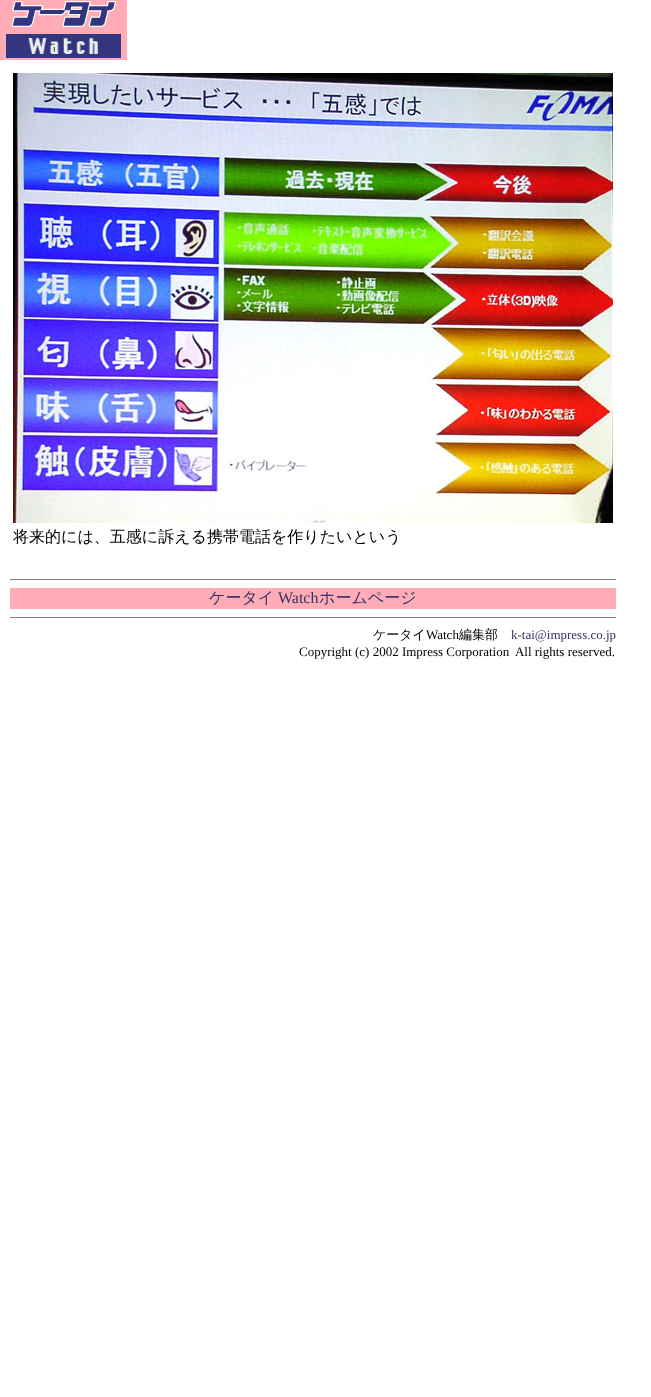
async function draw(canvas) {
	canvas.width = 651;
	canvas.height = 1397;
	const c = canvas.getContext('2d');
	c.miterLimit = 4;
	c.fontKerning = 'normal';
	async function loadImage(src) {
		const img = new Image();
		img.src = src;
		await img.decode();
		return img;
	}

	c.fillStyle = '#fff';
	c.fillRect(0, 0, 651, 1397);
	c.fillStyle = '#ffacb7';
	c.fillRect(0, 0, 127, 60);
	c.drawImage(await loadImage('img1.png'), 6, 1, 115, 57);
	c.drawImage(await loadImage('img2.png'), 13, 73, 600, 450);
	c.font = '500 16px WenQuanYi Zen Hei';
	c.fillStyle = '#000';
	c.fillText('将来的には、五感に訴える携帯電話を作りたいという', 13, 542);
	c.fillStyle = '#808080';
	c.fillRect(10, 579, 606, 1);
	c.fillStyle = '#ffacb7';
	c.fillRect(10, 588, 606, 21);
	c.fillStyle = '#336';
	c.fillText('ケータイ', 209, 603);
	c.font = '16px Liberation Serif';
	c.fillText('Watch', 278, 603);
	c.font = '500 16px WenQuanYi Zen Hei';
	c.fillText('ホームページ', 319, 603);
	c.fillStyle = '#808080';
	c.fillRect(10, 617, 606, 1);
	c.font = '500 13px WenQuanYi Zen Hei';
	c.fillStyle = '#000';
	c.fillText('ケータイ', 373, 639);
	c.font = '13px Liberation Serif';
	c.fillText('Watch', 426, 639);
	c.font = '500 13px WenQuanYi Zen Hei';
	c.fillText('編集部', 459, 639);
	c.font = '13px Liberation Serif';
	c.fillStyle = '#336';
	c.fillText('k-tai@impress.co.jp', 511, 639);
	c.fillStyle = '#000';
	c.fillText('Copyright (c) 2002 Impress Corporation  All rights reserved.', 299, 656);
}

draw(document.querySelector('canvas'));
